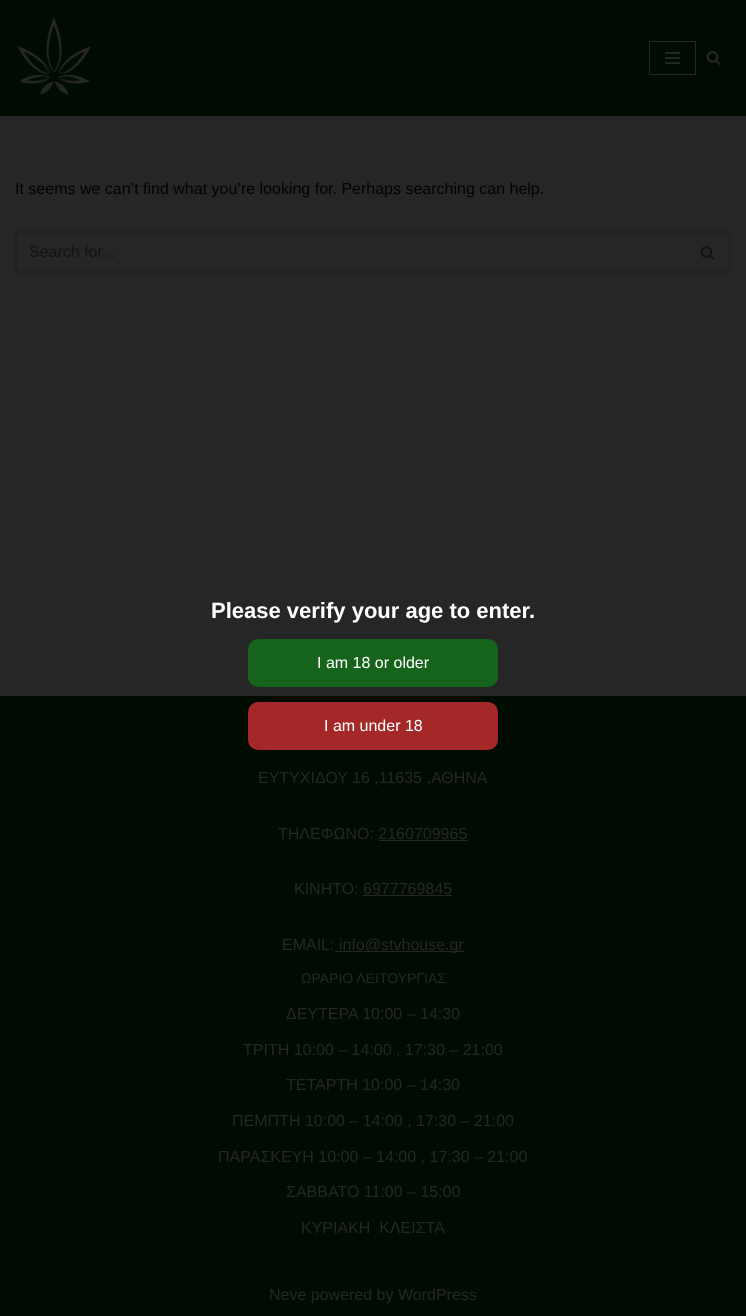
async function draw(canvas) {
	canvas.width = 746;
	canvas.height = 1316;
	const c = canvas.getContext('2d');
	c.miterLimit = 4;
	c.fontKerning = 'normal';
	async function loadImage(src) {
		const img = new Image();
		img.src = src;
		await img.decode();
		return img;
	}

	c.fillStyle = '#262626';
	c.fillRect(0, 0, 746, 1316);
	c.fillStyle = '#000c01';
	c.fillRect(0, 0, 746, 116);
	c.drawImage(await loadImage('img1.png'), 17, 18, 74, 77);
	c.strokeStyle = '#262626';
	c.strokeRect(649.5, 41.5, 46, 33);
	for (const [x, y, w, h, color] of [
		[665, 52, 15, 2, '#262626'],
		[665, 57, 15, 2, '#262626'],
		[665, 62, 15, 2, '#262626'],
	]) {
		c.fillStyle = color;
		c.fillRect(x, y, w, h);
	}
	c.drawImage(await loadImage('img2.png'), 706, 51, 15, 14);
	c.font = '16px Liberation Sans';
	c.fillStyle = '#030303';
	c.fillText('It seems we can’t find what you’re looking for. Perhaps searching can help.', 15, 194);
	c.fillStyle = '#212121';
	c.beginPath();
	c.moveTo(18, 231);
	c.lineTo(686, 231);
	c.lineTo(686, 273);
	c.lineTo(18, 273);
	c.bezierCurveTo(16, 273, 15, 272, 15, 270);
	c.lineTo(15, 234);
	c.bezierCurveTo(15, 232, 16, 231, 18, 231);
	c.closePath();
	c.moveTo(18, 233);
	c.lineTo(686, 233);
	c.lineTo(686, 271);
	c.lineTo(18, 271);
	c.bezierCurveTo(17, 271, 17, 271, 17, 270);
	c.lineTo(17, 234);
	c.bezierCurveTo(17, 233, 17, 233, 18, 233);
	c.closePath();
	c.fill('evenodd');
	c.fillStyle = '#141414';
	c.fillText('Search for...', 29, 257);
	c.fillStyle = '#212121';
	c.beginPath();
	c.moveTo(686, 231);
	c.lineTo(728, 231);
	c.bezierCurveTo(730, 231, 731, 232, 731, 234);
	c.lineTo(731, 270);
	c.bezierCurveTo(731, 272, 730, 273, 728, 273);
	c.lineTo(686, 273);
	c.closePath();
	c.moveTo(686, 233);
	c.lineTo(728, 233);
	c.bezierCurveTo(729, 233, 729, 233, 729, 234);
	c.lineTo(729, 270);
	c.bezierCurveTo(729, 271, 729, 271, 728, 271);
	c.lineTo(686, 271);
	c.closePath();
	c.fill('evenodd');
	c.drawImage(await loadImage('img3.png'), 700, 246, 15, 14);
	c.fillStyle = '#000c01';
	c.fillRect(0, 696, 746, 578);
	c.fillStyle = '#262626';
	c.fillText('ΕΥΤΥΧΙΔΟΥ 16 ,11635 ,ΑΘΗΝΑ', 258, 783);
	c.fillText('ΤΗΛΕΦΩΝΟ: 2160709965', 278, 839);
	c.fillRect(379, 840, 89, 1);
	c.fillText('ΚΙΝΗΤΟ: 6977769845', 294, 894);
	c.fillRect(363, 895, 89, 1);
	c.fillText('EMAIL:', 282, 950);
	c.fillRect(335, 951, 129, 1);
	c.fillText('info@stvhouse.gr', 339, 950);
	c.font = '14px Liberation Sans';
	c.fillText('ΩΡΑΡΙΟ ΛΕΙΤΟΥΡΓΙΑΣ', 301, 983);
	c.font = '16px Liberation Sans';
	for (const [text, x, y] of [
		['ΔΕΥΤΕΡΑ 10:00 – 14:30', 286, 1019],
		['ΤΡΙΤΗ 10:00 – 14:00 , 17:30 – 21:00', 243, 1055],
		['ΤΕΤΑΡΤΗ 10:00 – 14:30', 286, 1090],
		['ΠΕΜΠΤΗ 10:00 – 14:00 , 17:30 – 21:00', 232, 1126],
		['ΠΑΡΑΣΚΕΥΗ 10:00 – 14:00 , 17:30 – 21:00', 218, 1162],
		['ΣΑΒΒΑΤΟ 11:00 – 15:00', 286, 1197],
		['ΚΥΡΙΑΚΗ  ΚΛΕΙΣΤΑ', 301, 1233],
	]) {
		c.fillText(text, x, y);
	}
	c.fillStyle = '#000c02';
	c.fillRect(0, 1274, 746, 42);
	c.fillStyle = '#262626';
	c.fillText('Neve powered by WordPress', 269, 1300);
	c.font = 'bold 22px Liberation Sans';
	c.fillStyle = '#fff';
	c.fillText('Please verify your age to enter.', 211, 618);
	c.fillStyle = '#16641b';
	c.beginPath();
	c.roundRect(248, 639, 250, 48, 10);
	c.fill();
	c.font = '16px Liberation Sans';
	c.fillStyle = '#fff';
	c.fillText('I am 18 or older', 317, 668);
	c.fillStyle = '#a42828';
	c.beginPath();
	c.roundRect(248, 702, 250, 48, 10);
	c.fill();
	c.fillStyle = '#fff';
	c.fillText('I am under 18', 324, 731);
}

draw(document.querySelector('canvas'));
